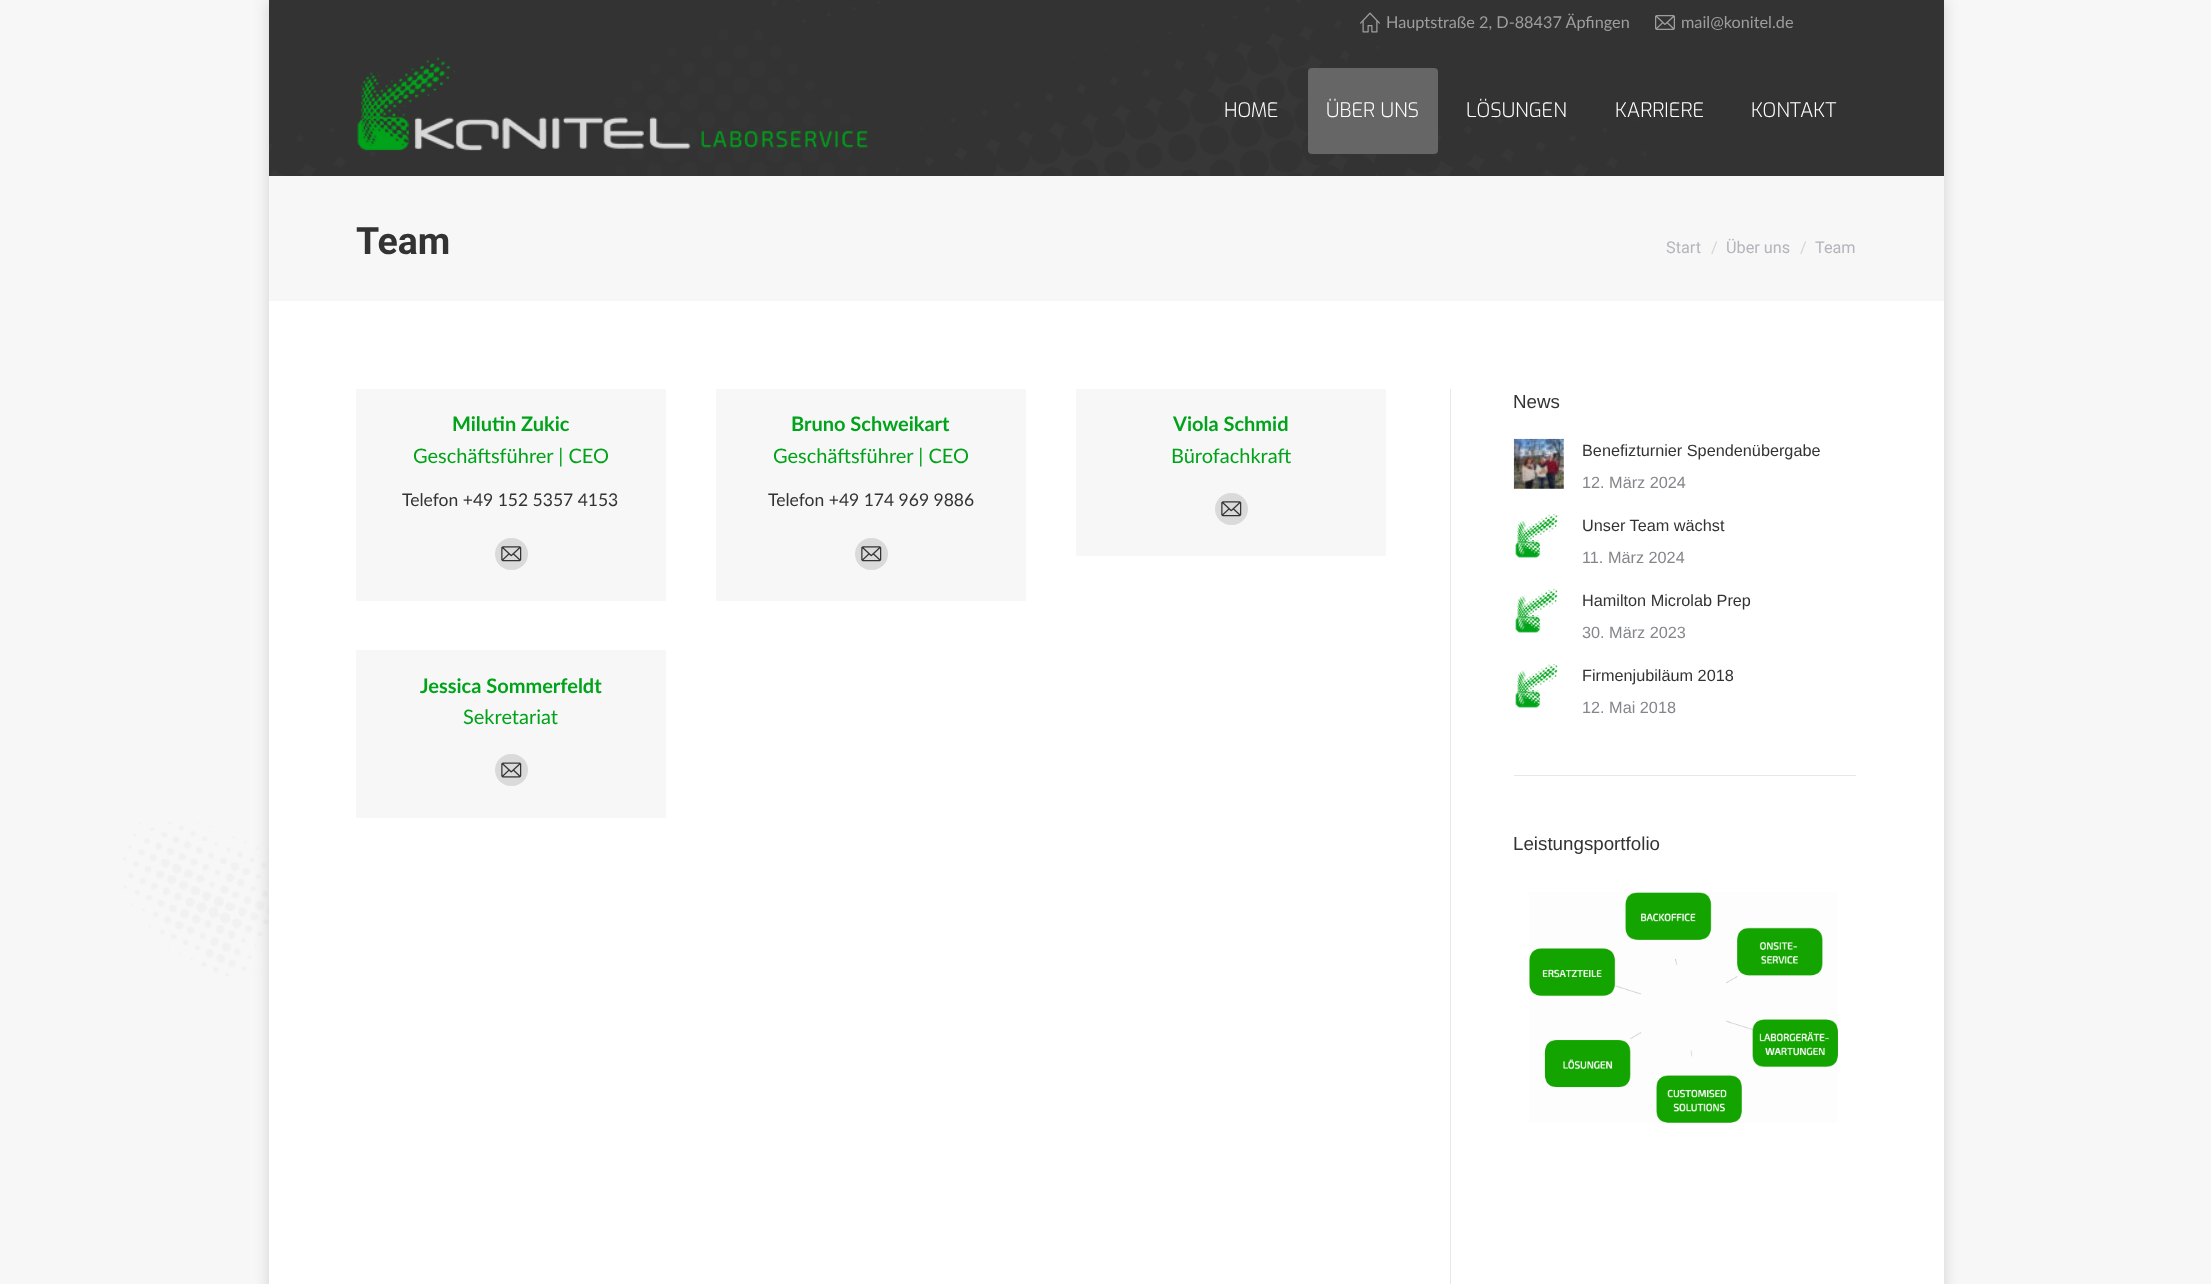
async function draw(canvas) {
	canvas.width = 2211;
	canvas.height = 1284;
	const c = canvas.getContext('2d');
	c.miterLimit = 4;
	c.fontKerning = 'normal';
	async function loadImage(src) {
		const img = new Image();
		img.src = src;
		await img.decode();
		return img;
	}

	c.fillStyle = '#f7f7f7';
	c.fillRect(0, 0, 2211, 1284);
	c.drawImage(await loadImage('img1.png'), 123, 822, 146, 154);
	c.fillStyle = '#00000026';
	c.filter = 'blur(7.5px)';
	c.beginPath();
	c.rect(269, 0, 1675, 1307);
	c.fill();
	c.filter = 'none';
	c.fillStyle = '#fff';
	c.fillRect(269, 301, 1675, 983);
	c.fillStyle = '#333';
	c.fillRect(269, 0, 1675, 176);
	c.drawImage(await loadImage('img2.png'), 269, 0, 1377, 176);
	c.drawImage(await loadImage('img3.png'), 1360, 12, 20, 21);
	c.font = '16.25px Lato';
	c.fillStyle = '#9e9e9e';
	c.fillText('Hauptstraße 2, D-88437 Äpfingen', 1386, 28);
	c.drawImage(await loadImage('img4.png'), 1655, 15, 20, 15);
	c.fillText('mail@konitel.de', 1681, 28);
	c.drawImage(await loadImage('img5.png'), 357, 57, 511, 94);
	c.font = '300 20px Exo';
	c.fillStyle = '#fff';
	c.fillText('HOME', 1224, 117);
	c.fillStyle = '#666';
	c.beginPath();
	c.roundRect(1308, 68, 130, 86, 4);
	c.fill();
	c.fillStyle = '#fff';
	for (const [text, x, y] of [
		['ÜBER UNS', 1326, 117],
		['LÖSUNGEN', 1466, 117],
		['KARRIERE', 1615, 117],
		['KONTAKT', 1751, 117],
	]) {
		c.fillText(text, x, y);
	}
	c.fillStyle = '#f7f7f7';
	c.fillRect(269, 176, 1675, 125);
	c.font = 'bold 37.5px Roboto';
	c.fillStyle = '#333';
	c.fillText('Team', 356, 254);
	c.font = '16.25px Roboto';
	c.fillStyle = '#b4b5bb';
	c.fillText('Start', 1666, 253);
	c.fillStyle = '#d6d6d9';
	c.fillText('/', 1711, 253);
	c.fillStyle = '#b4b5bb';
	c.fillText('Über uns', 1726, 253);
	c.fillStyle = '#d6d6d9';
	c.fillText('/', 1800, 253);
	c.fillStyle = '#b4b5bb';
	c.fillText('Team', 1815, 253);
	c.fillStyle = '#f7f7f7';
	c.fillRect(356, 389, 310, 212);
	c.font = 'bold 20px Lato';
	c.fillStyle = '#00a31a';
	c.fillText('Milutin Zukic', 452, 431);
	c.font = '20px Lato';
	c.fillText('Geschäftsführer | CEO', 413, 463);
	c.font = '17.5px Lato';
	c.fillStyle = '#333';
	c.fillText('Telefon +49 152 5357 4153', 402, 506);
	c.fillStyle = '#dadada';
	c.beginPath();
	c.roundRect(495, 538, 33, 32, 16);
	c.fill();
	c.drawImage(await loadImage('img6.png'), 501, 546, 21, 16);
	c.fillStyle = '#f7f7f7';
	c.fillRect(716, 389, 310, 212);
	c.font = 'bold 20px Lato';
	c.fillStyle = '#00a31a';
	c.fillText('Bruno Schweikart', 791, 431);
	c.font = '20px Lato';
	c.fillText('Geschäftsführer | CEO', 773, 463);
	c.font = '17.5px Lato';
	c.fillStyle = '#333';
	c.fillText('Telefon +49 174 969 9886', 768, 506);
	c.fillStyle = '#dadada';
	c.beginPath();
	c.roundRect(855, 538, 33, 32, 16);
	c.fill();
	c.drawImage(await loadImage('img6.png'), 861, 546, 21, 16);
	c.fillStyle = '#f7f7f7';
	c.fillRect(1076, 389, 310, 167);
	c.font = 'bold 20px Lato';
	c.fillStyle = '#00a31a';
	c.fillText('Viola Schmid', 1173, 431);
	c.font = '20px Lato';
	c.fillText('Bürofachkraft', 1171, 463);
	c.fillStyle = '#dadada';
	c.beginPath();
	c.roundRect(1215, 493, 33, 32, 16);
	c.fill();
	c.drawImage(await loadImage('img6.png'), 1221, 501, 21, 16);
	c.fillStyle = '#f7f7f7';
	c.fillRect(356, 650, 310, 168);
	c.font = 'bold 20px Lato';
	c.fillStyle = '#00a31a';
	c.fillText('Jessica Sommerfeldt', 420, 693);
	c.font = '20px Lato';
	c.fillText('Sekretariat', 463, 724);
	c.fillStyle = '#dadada';
	c.beginPath();
	c.roundRect(495, 754, 33, 32, 16);
	c.fill();
	c.drawImage(await loadImage('img7.png'), 501, 762, 21, 16);
	c.fillStyle = '#e7e7e7';
	c.fillRect(1450, 389, 1, 895);
	c.font = '18.75px Liberation Sans';
	c.fillStyle = '#333';
	c.fillText('News', 1513, 408);
	c.drawImage(await loadImage('img8.png'), 1513, 438, 51, 51);
	c.font = '16.25px Liberation Sans';
	c.fillText('Benefizturnier Spendenübergabe', 1582, 456);
	c.fillStyle = '#85868c';
	c.fillText('12. März 2024', 1582, 488);
	c.drawImage(await loadImage('img9.png'), 1515, 513, 43, 45);
	c.fillStyle = '#333';
	c.fillText('Unser Team wächst', 1582, 531);
	c.fillStyle = '#85868c';
	c.fillText('11. März 2024', 1582, 563);
	c.drawImage(await loadImage('img9.png'), 1515, 588, 43, 45);
	c.fillStyle = '#333';
	c.fillText('Hamilton Microlab Prep', 1582, 606);
	c.fillStyle = '#85868c';
	c.fillText('30. März 2023', 1582, 638);
	c.drawImage(await loadImage('img9.png'), 1515, 663, 43, 45);
	c.fillStyle = '#333';
	c.fillText('Firmenjubiläum 2018', 1582, 681);
	c.fillStyle = '#85868c';
	c.fillText('12. Mai 2018', 1582, 713);
	c.fillStyle = '#e7e7e7';
	c.fillRect(1514, 775, 342, 1);
	c.font = '18.75px Liberation Sans';
	c.fillStyle = '#333';
	c.fillText('Leistungsportfolio', 1513, 850);
	c.drawImage(await loadImage('img10.png'), 1529, 892, 309, 231);
}

draw(document.querySelector('canvas'));
